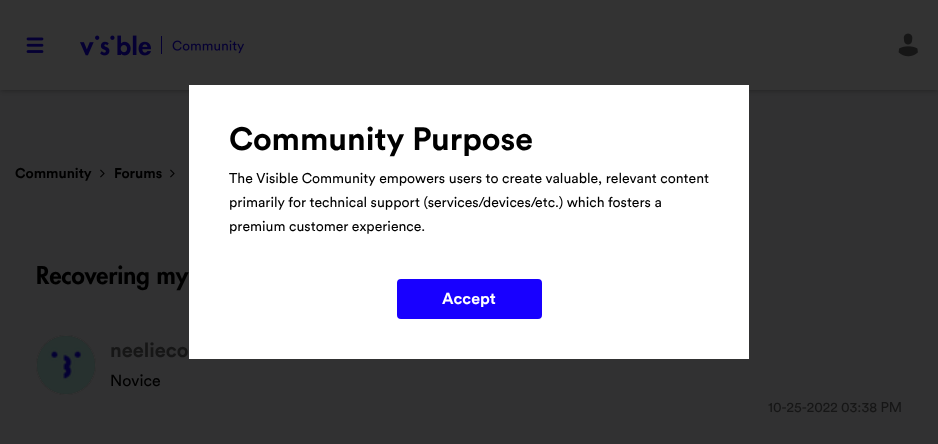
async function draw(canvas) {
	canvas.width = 938;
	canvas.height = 444;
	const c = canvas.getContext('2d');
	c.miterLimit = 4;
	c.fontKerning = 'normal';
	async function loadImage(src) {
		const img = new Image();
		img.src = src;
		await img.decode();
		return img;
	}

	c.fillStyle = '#313132';
	c.fillRect(0, 0, 938, 444);
	c.fillStyle = '#00000040';
	c.filter = 'blur(2px)';
	c.beginPath();
	c.rect(1, 3, 936, 88);
	c.fill();
	c.filter = 'none';
	c.fillStyle = '#333';
	c.fillRect(0, 0, 938, 90);
	c.fillStyle = '#fff';
	c.fillRect(189, 85, 560, 274);
	c.font = 'bold 32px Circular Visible';
	c.fillStyle = '#000';
	c.fillText('Community Purpose', 229, 150);
	c.font = '14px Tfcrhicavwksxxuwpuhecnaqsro';
	for (const [text, x, y] of [
		['The Visible Community empowers users to create valuable, relevant content', 229, 183],
		['primarily for technical support (services/devices/etc.) which fosters a', 229, 207],
		['premium customer experience.', 229, 231],
	]) {
		c.fillText(text, x, y);
	}
	c.fillStyle = '#1800ff';
	c.beginPath();
	c.roundRect(398, 280, 143, 38, 3);
	c.fill();
	c.strokeStyle = '#1800ff';
	c.lineWidth = 2;
	c.stroke();
	c.font = 'bold 16px Circular Visible';
	c.fillStyle = '#fff';
	c.fillText('Accept', 442, 304);
	c.drawImage(await loadImage('img1.png'), 26, 37, 18, 16);
	c.drawImage(await loadImage('img2.png'), 80, 35, 164, 21);
	c.drawImage(await loadImage('img3.png'), 898, 33, 20, 24);
	c.font = 'bold 14px Circular Visible';
	c.fillStyle = '#000';
	c.fillText('Community', 15, 178);
	c.drawImage(await loadImage('img4.png'), 100, 169, 5, 9);
	c.fillText('Forums', 114, 178);
	c.drawImage(await loadImage('img4.png'), 170, 169, 5, 9);
	c.font = '900 24px Futura';
	c.fillText('Recovering my', 36, 284);
	c.fillStyle = '#272727';
	c.filter = 'blur(0.5px)';
	c.beginPath();
	c.roundRect(36, 335, 60, 60, 30);
	c.fill();
	c.filter = 'none';
	c.beginPath();
	c.arc(66, 365, 29.5, 0, 2 * Math.PI);
	c.strokeStyle = '#333';
	c.lineWidth = 1;
	c.stroke();
	c.drawImage(await loadImage('img5.png'), 37, 336, 58, 58);
	c.font = 'bold 20px Circular Visible';
	c.fillStyle = '#161616';
	c.fillText('neelieco', 110, 357);
	c.font = '16px Tfcrhicavwksxxuwpuhecnaqsro';
	c.fillStyle = '#000';
	c.fillText('Novice', 110, 386);
	c.font = '14px Tfcrhicavwksxxuwpuhecnaqsro';
	c.fillStyle = '#161616';
	c.fillText('10-25-2022', 768, 412);
	c.fillText('03:38 PM', 841, 412);
}

draw(document.querySelector('canvas'));
